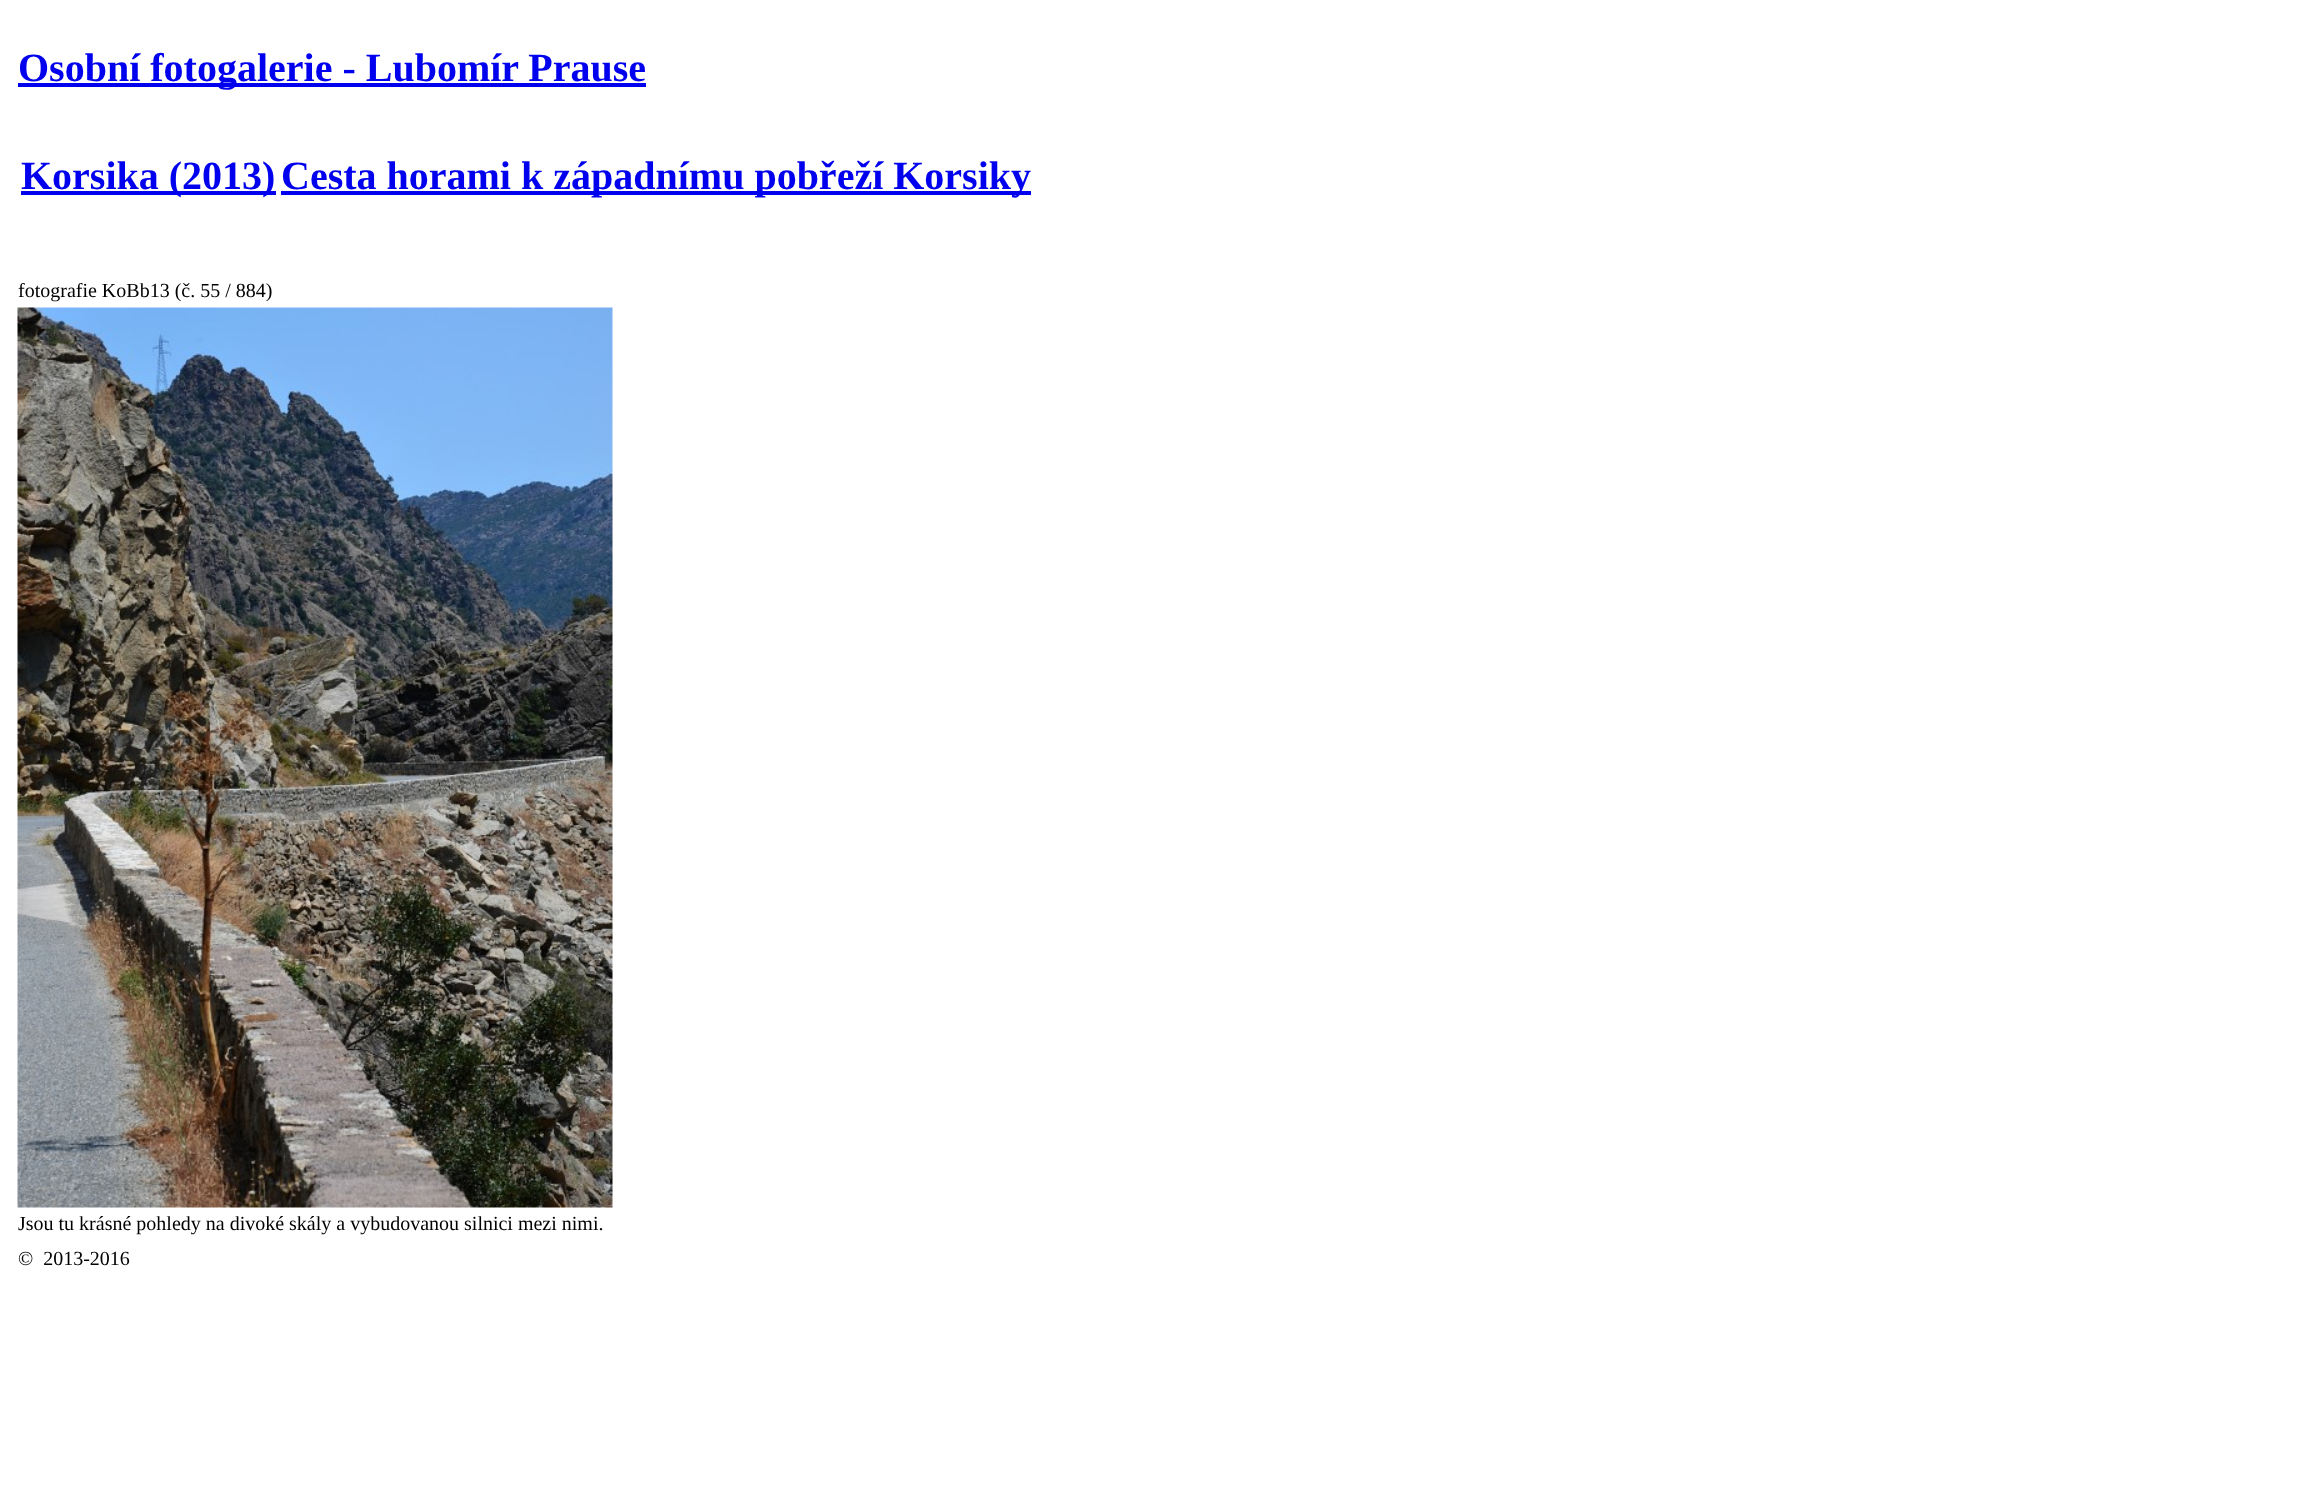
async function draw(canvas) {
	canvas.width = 2298;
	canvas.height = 1491;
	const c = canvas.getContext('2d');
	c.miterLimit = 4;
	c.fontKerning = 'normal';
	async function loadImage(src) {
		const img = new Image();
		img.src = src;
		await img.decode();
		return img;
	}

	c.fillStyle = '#fff';
	c.fillRect(0, 0, 2298, 1491);
	c.fillStyle = '#00e';
	c.fillRect(18, 83, 628, 4);
	c.font = 'bold 40px Liberation Serif';
	c.fillText('Osobní fotogalerie - Lubomír Prause', 18, 81);
	c.fillRect(21, 191, 255, 4);
	c.fillText('Korsika (2013)', 21, 189);
	c.fillRect(281, 191, 750, 4);
	c.fillText('Cesta horami k západnímu pobřeží Korsiky', 281, 189);
	c.font = '20px Liberation Serif';
	c.fillStyle = '#000';
	c.fillText('fotografie KoBb13 (č. 55 / 884)', 18, 297);
	c.drawImage(await loadImage('img1.png'), 17, 307, 596, 901);
	c.fillText('Jsou tu krásné pohledy na divoké skály a vybudovanou silnici mezi nimi.', 18, 1230);
	c.fillText('©  2013-2016', 18, 1265);
}

draw(document.querySelector('canvas'));
